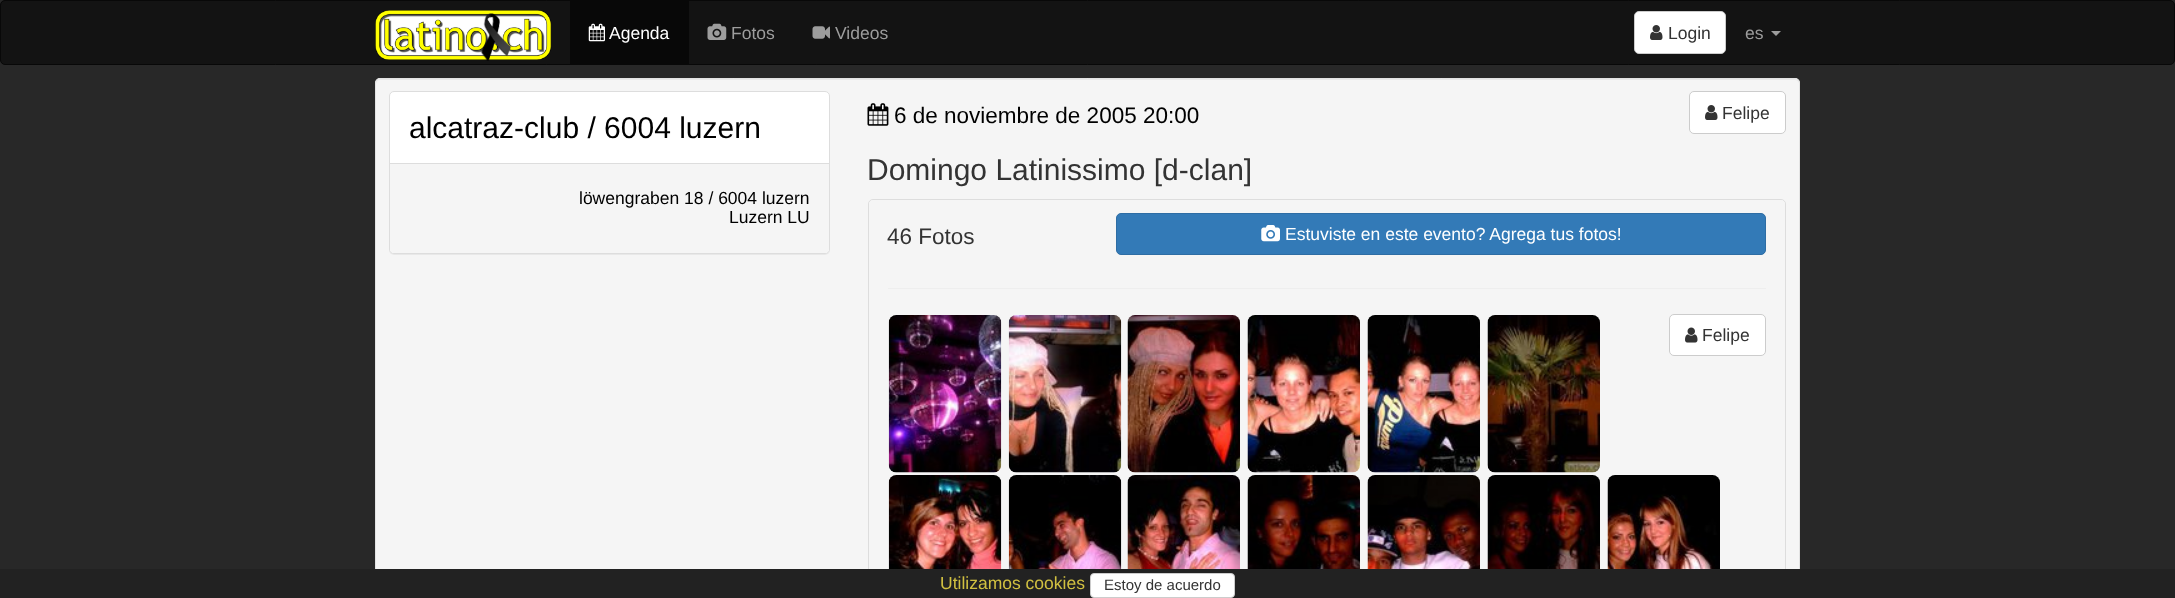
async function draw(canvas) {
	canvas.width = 2175;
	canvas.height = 598;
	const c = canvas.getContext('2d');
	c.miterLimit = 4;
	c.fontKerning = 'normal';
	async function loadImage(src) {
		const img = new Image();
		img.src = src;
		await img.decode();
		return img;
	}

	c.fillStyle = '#282828';
	c.fillRect(0, 0, 2175, 598);
	c.fillStyle = '#131313';
	c.beginPath();
	c.roundRect(0.5, 0.5, 2174, 64, 4.5);
	c.fill();
	c.strokeStyle = '#080808';
	c.stroke();
	c.drawImage(await loadImage('img1.png'), 375, 10, 177, 50);
	c.drawImage(await loadImage('img2.png'), 480, 13, 32, 48);
	c.fillStyle = '#080808';
	c.fillRect(570, 1, 119, 63);
	c.drawImage(await loadImage('img3.png'), 588, 23, 17, 19);
	c.font = '17.5px Liberation Sans';
	c.fillStyle = '#fff';
	c.fillText('Agenda', 609, 39);
	c.drawImage(await loadImage('img4.png'), 707, 23, 20, 17);
	c.fillStyle = '#9d9d9d';
	c.fillText('Fotos', 731, 39);
	c.drawImage(await loadImage('img5.png'), 812, 26, 18, 13);
	c.fillText('Videos', 835, 39);
	c.fillStyle = '#fff';
	c.beginPath();
	c.roundRect(1634.5, 11.5, 91, 42, 4.5);
	c.fill();
	c.strokeStyle = '#ccc';
	c.stroke();
	c.drawImage(await loadImage('img6.png'), 1650, 25, 13, 15);
	c.fillStyle = '#333';
	c.fillText('Login', 1668, 39);
	c.fillStyle = '#9d9d9d';
	c.fillText('es', 1745, 39);
	c.beginPath();
	c.moveTo(1771, 31);
	c.lineTo(1781, 31);
	c.lineTo(1776, 36);
	c.closePath();
	c.fill();
	c.fillStyle = '#f5f5f5';
	c.beginPath();
	c.roundRect(375, 78, 1425, 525, 5);
	c.fill();
	c.fillStyle = '#e9e9e9';
	c.beginPath();
	c.moveTo(380, 80);
	c.lineTo(1795, 80);
	c.bezierCurveTo(1797, 80, 1799, 82, 1799, 84);
	c.lineTo(1799, 83);
	c.bezierCurveTo(1799, 81, 1797, 79, 1795, 79);
	c.lineTo(380, 79);
	c.bezierCurveTo(378, 79, 376, 81, 376, 83);
	c.lineTo(376, 84);
	c.bezierCurveTo(376, 82, 378, 80, 380, 80);
	c.closePath();
	c.fill();
	c.beginPath();
	c.roundRect(375.5, 78.5, 1424, 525, 4.5);
	c.strokeStyle = '#e3e3e3';
	c.stroke();
	c.fillStyle = '#0000000d';
	c.filter = 'blur(0.5px)';
	c.beginPath();
	c.roundRect(389, 93, 441, 162, 5);
	c.fill();
	c.filter = 'none';
	c.fillStyle = '#fff';
	c.beginPath();
	c.roundRect(389.5, 91.5, 440, 162, 4.5);
	c.fill();
	c.strokeStyle = '#ddd';
	c.stroke();
	c.font = '30px Liberation Sans';
	c.fillStyle = '#000';
	c.fillText('alcatraz-club / 6004 luzern', 409, 138);
	c.fillStyle = '#f5f5f5';
	c.beginPath();
	c.roundRect(390, 163, 439, 90, [0, 0, 4, 4]);
	c.fill();
	c.fillStyle = '#ddd';
	c.fillRect(390, 163, 439, 1);
	c.font = '17.5px Liberation Sans';
	c.fillStyle = '#000';
	c.fillText('löwengraben 18 / 6004 luzern', 579, 204);
	c.fillText('Luzern LU', 729, 223);
	c.drawImage(await loadImage('img7.png'), 867, 103, 22, 23);
	c.font = '22.5px Liberation Sans';
	c.fillText('6 de noviembre de 2005 20:00', 894, 123);
	c.font = '30px Liberation Sans';
	c.fillStyle = '#333';
	c.fillText('Domingo Latinissimo [d-clan]', 867, 180);
	c.fillStyle = '#fff';
	c.beginPath();
	c.roundRect(1689.5, 91.5, 96, 42, 4.5);
	c.fill();
	c.strokeStyle = '#ccc';
	c.stroke();
	c.drawImage(await loadImage('img6.png'), 1705, 105, 13, 15);
	c.font = '17.5px Liberation Sans';
	c.fillStyle = '#333';
	c.fillText('Felipe', 1722, 119);
	c.beginPath();
	c.roundRect(868.5, 199.5, 917, 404, 4.5);
	c.strokeStyle = '#ddd';
	c.stroke();
	c.fillStyle = '#f5f5f5';
	c.beginPath();
	c.moveTo(873, 200);
	c.lineTo(1781, 200);
	c.bezierCurveTo(1783, 200, 1785, 202, 1785, 204);
	c.lineTo(1785, 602);
	c.lineTo(869, 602);
	c.lineTo(869, 204);
	c.bezierCurveTo(869, 202, 871, 200, 873, 200);
	c.closePath();
	c.fill();
	c.font = '22.5px Liberation Sans';
	c.fillStyle = '#333';
	c.fillText('46 Fotos', 887, 244);
	c.fillStyle = '#337ab7';
	c.beginPath();
	c.roundRect(1116.5, 213.5, 649, 41, 4.5);
	c.fill();
	c.strokeStyle = '#2e6da4';
	c.stroke();
	c.drawImage(await loadImage('img8.png'), 1261, 225, 19, 17);
	c.font = '17.5px Liberation Sans';
	c.fillStyle = '#fff';
	c.fillText('Estuviste en este evento? Agrega tus fotos!', 1285, 240);
	c.fillStyle = '#eee';
	c.fillRect(888, 288, 878, 1);
	c.drawImage(await loadImage('img9.png'), 888, 315, 114, 158);
	c.drawImage(await loadImage('img10.png'), 1008, 315, 114, 158);
	c.drawImage(await loadImage('img11.png'), 1127, 315, 113, 158);
	c.drawImage(await loadImage('img12.png'), 1247, 315, 113, 158);
	c.drawImage(await loadImage('img13.png'), 1367, 315, 113, 158);
	c.drawImage(await loadImage('img14.png'), 1487, 315, 113, 158);
	c.drawImage(await loadImage('img15.png'), 888, 475, 114, 94);
	c.drawImage(await loadImage('img16.png'), 1008, 475, 114, 94);
	c.drawImage(await loadImage('img17.png'), 1127, 475, 113, 94);
	c.drawImage(await loadImage('img18.png'), 1247, 475, 113, 94);
	c.drawImage(await loadImage('img19.png'), 1367, 475, 113, 94);
	c.drawImage(await loadImage('img20.png'), 1487, 475, 113, 94);
	c.drawImage(await loadImage('img21.png'), 1607, 475, 113, 94);
	c.fillStyle = '#fff';
	c.beginPath();
	c.roundRect(1669.5, 314.5, 96, 41, 4.5);
	c.fill();
	c.strokeStyle = '#ccc';
	c.stroke();
	c.drawImage(await loadImage('img22.png'), 1685, 327, 13, 16);
	c.fillStyle = '#333';
	c.fillText('Felipe', 1702, 341);
	c.fillStyle = '#222';
	c.fillRect(0, 569, 2175, 29);
	c.fillStyle = '#d1c041';
	c.fillText('Utilizamos cookies', 940, 589);
	c.fillStyle = '#fff';
	c.beginPath();
	c.roundRect(1090.5, 573.5, 144, 24, 3.5);
	c.fill();
	c.stroke();
	c.font = '15px Liberation Sans';
	c.fillStyle = '#333';
	c.fillText('Estoy de acuerdo', 1104, 590);
}

draw(document.querySelector('canvas'));
